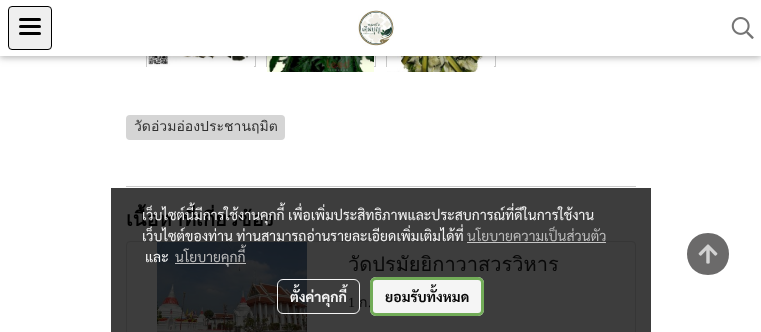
async function draw(canvas) {
	canvas.width = 761;
	canvas.height = 332;
	const c = canvas.getContext('2d');
	c.miterLimit = 4;
	c.fontKerning = 'normal';
	async function loadImage(src) {
		const img = new Image();
		img.src = src;
		await img.decode();
		return img;
	}

	c.fillStyle = '#fff';
	c.fillRect(0, 0, 761, 332);
	c.fillStyle = '#3d3d3d';
	c.fillRect(111, 188, 540, 144);
	c.strokeStyle = '#ccc';
	c.strokeRect(146.5, -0.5, 109, 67);
	c.drawImage(await loadImage('img3.png'), 147, 56, 107, 11);
	c.strokeRect(266.5, -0.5, 109, 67);
	c.drawImage(await loadImage('img4.png'), 267, 56, 107, 16);
	c.strokeRect(386.5, -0.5, 109, 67);
	c.drawImage(await loadImage('img5.png'), 387, 56, 107, 16);
	c.fillStyle = '#0000001f';
	c.filter = 'blur(5px)';
	c.beginPath();
	c.rect(0, 2, 761, 56);
	c.fill();
	c.filter = 'none';
	c.fillStyle = '#00000029';
	c.filter = 'blur(2.5px)';
	c.beginPath();
	c.rect(0, 2, 761, 56);
	c.fill();
	c.filter = 'none';
	c.fillStyle = '#fff';
	c.fillRect(0, 0, 761, 56);
	c.fillStyle = '#efefef';
	c.beginPath();
	c.roundRect(8.5, 6.5, 43, 43, 3.5);
	c.fill();
	c.strokeStyle = '#000';
	c.stroke();
	c.fillStyle = '#000';
	c.beginPath();
	c.roundRect(19, 25, 22, 3, 1.5);
	c.fill();
	c.beginPath();
	c.roundRect(19, 18, 22, 3, 1.5);
	c.fill();
	c.beginPath();
	c.roundRect(19, 32, 22, 3, 1.5);
	c.fill();
	c.drawImage(await loadImage('img1.png'), 358, 10, 36, 36);
	c.drawImage(await loadImage('img2.png'), 731, 17, 23, 22);
	c.fillStyle = '#d5d5d5';
	c.beginPath();
	c.roundRect(126, 115, 159, 25, 4);
	c.fill();
	c.font = '14px Loma';
	c.fillStyle = '#303030';
	c.fillText('วัดอ่วมอ่องประชานฤมิต', 134, 131);
	c.fillStyle = '#ccc';
	c.fillRect(126, 186, 510, 1);
	c.font = 'bold 20px Loma';
	c.fillStyle = '#000';
	c.fillText('เนื้อหาที่เกี่ยวข้อง', 126, 226);
	c.beginPath();
	c.roundRect(126.5, 241.5, 509, 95, 3.5);
	c.strokeStyle = '#363636';
	c.stroke();
	c.drawImage(await loadImage('img6.png'), 157, 242, 150, 90);
	c.save();
	c.beginPath();
	c.rect(348, 252, 282, 24);
	c.clip();
	c.font = '20px Loma';
	c.fillStyle = '#080808';
	c.fillText('วัดปรมัยยิกาวาสวรวิหาร', 348, 271);
	c.restore();
	c.font = '14px Liberation Serif';
	c.fillStyle = '#080808';
	c.fillText('1', 348, 307);
	c.font = '14px Loma';
	c.fillText('ก', 359, 307);
	c.font = '14px Liberation Serif';
	c.fillText('.', 368, 307);
	c.font = '14px Sarabun';
	c.fillStyle = '#f5f5f5';
	c.fillText('เว็บไซต์นี้มีการใช้งานคุกกี้ เพื่อเพิ่มประสิทธิภาพและประสบการณ์ที่ดีในการใช้งาน', 142, 220);
	c.fillText('เว็บไซต์ของท่าน ท่านสามารถอ่านรายละเอียดเพิ่มเติมได้ที่', 142, 241);
	c.fillStyle = '#bbb';
	c.fillText('นโยบายความเป็นส่วนตัว', 467, 241);
	c.fillStyle = '#c5c5c5';
	c.fillRect(467, 242, 139, 1);
	c.fillStyle = '#f5f5f5';
	c.fillText('และ', 145, 262);
	c.fillStyle = '#c2c2c2f2';
	c.fillRect(175, 263, 71, 1);
	c.fillStyle = '#bbb';
	c.fillText('นโยบายคุกกี้', 175, 262);
	c.beginPath();
	c.roundRect(277.5, 279.5, 82, 34, 5.5);
	c.strokeStyle = '#fffffff2';
	c.stroke();
	c.font = 'bold 14px Sarabun';
	c.fillStyle = '#f5f5f5';
	c.fillText('ตั้งค่าคุกกี้', 290, 302);
	c.fillStyle = '#fffffff2';
	c.beginPath();
	c.roundRect(370, 277, 114, 39, 6);
	c.fill();
	c.beginPath();
	c.roundRect(371.5, 278.5, 111, 36, 4.5);
	c.strokeStyle = '#6aa84ff2';
	c.lineWidth = 3;
	c.stroke();
	c.fillStyle = '#080808';
	c.fillText('ยอมรับทั้งหมด', 385, 302);
	c.fillStyle = '#6b6a6a';
	c.beginPath();
	c.moveTo(708, 233);
	c.bezierCurveTo(680, 233, 680, 275, 708, 275);
	c.bezierCurveTo(736, 275, 736, 233, 708, 233);
	c.closePath();
	c.fill();
	c.drawImage(await loadImage('img7.png'), 698, 244, 20, 20);
}

draw(document.querySelector('canvas'));
